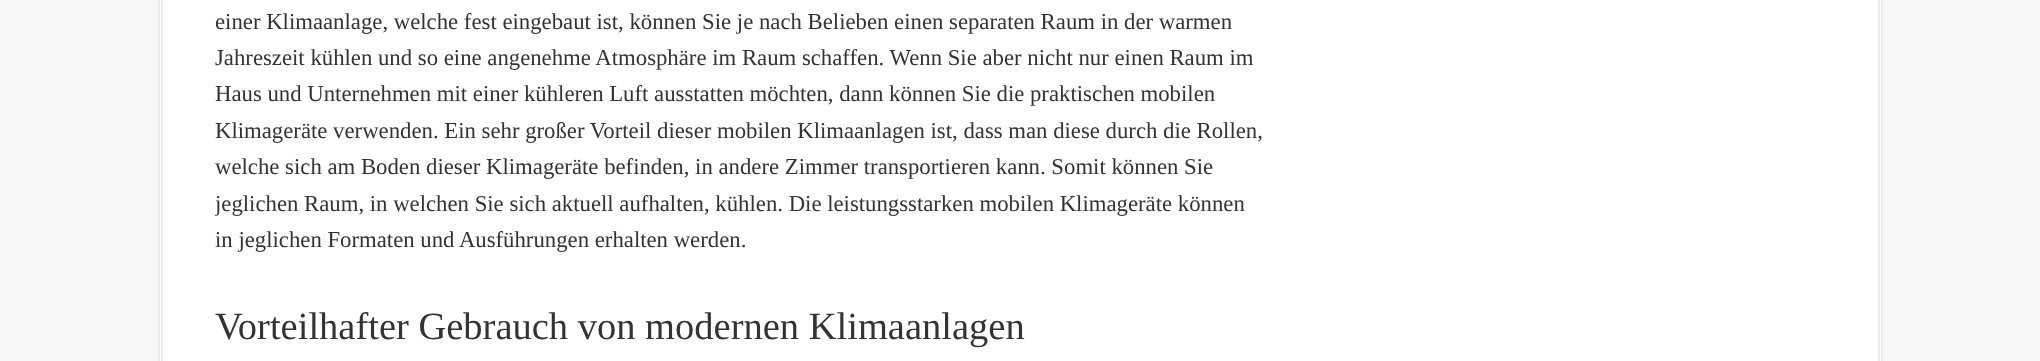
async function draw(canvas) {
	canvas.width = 2040;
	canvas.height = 361;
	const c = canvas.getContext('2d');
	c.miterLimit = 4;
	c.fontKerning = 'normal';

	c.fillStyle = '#f8f8f8';
	c.fillRect(0, 0, 2040, 361);
	c.fillStyle = '#fff';
	c.beginPath();
	c.rect(159, -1, 1723, 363);
	c.fill();
	c.strokeStyle = '#ebebeb';
	c.lineWidth = 2;
	c.stroke();
	c.strokeRect(162, -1, 1717, 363);
	c.font = '22.75px Liberation Serif';
	c.fillStyle = '#333';
	for (const [text, x, y] of [
		['einer Klimaanlage, welche fest eingebaut ist, können Sie je nach Belieben einen separaten Raum in der warmen', 215, 29],
		['Jahreszeit kühlen und so eine angenehme Atmosphäre im Raum schaffen. Wenn Sie aber nicht nur einen Raum im', 215, 65],
		['Haus und Unternehmen mit einer kühleren Luft ausstatten möchten, dann können Sie die praktischen mobilen', 215, 101],
		['Klimageräte verwenden. Ein sehr großer Vorteil dieser mobilen Klimaanlagen ist, dass man diese durch die Rollen,', 215, 138],
		['welche sich am Boden dieser Klimageräte befinden, in andere Zimmer transportieren kann. Somit können Sie', 215, 174],
	]) {
		c.fillText(text, x, y);
	}
	c.save();
	c.beginPath();
	c.rect(215, 0, 1050, 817);
	c.clip();
	c.fillText('jeglichen Raum, in welchen Sie sich aktuell aufhalten, kühlen. Die leistungsstarken mobilen Klimageräte können', 215, 211);
	c.restore();
	c.fillText('in jeglichen Formaten und Ausführungen erhalten werden.', 215, 247);
	c.font = '38.5px Liberation Serif';
	c.fillText('Vorteilhafter Gebrauch von modernen Klimaanlagen', 215, 339);
}

draw(document.querySelector('canvas'));
